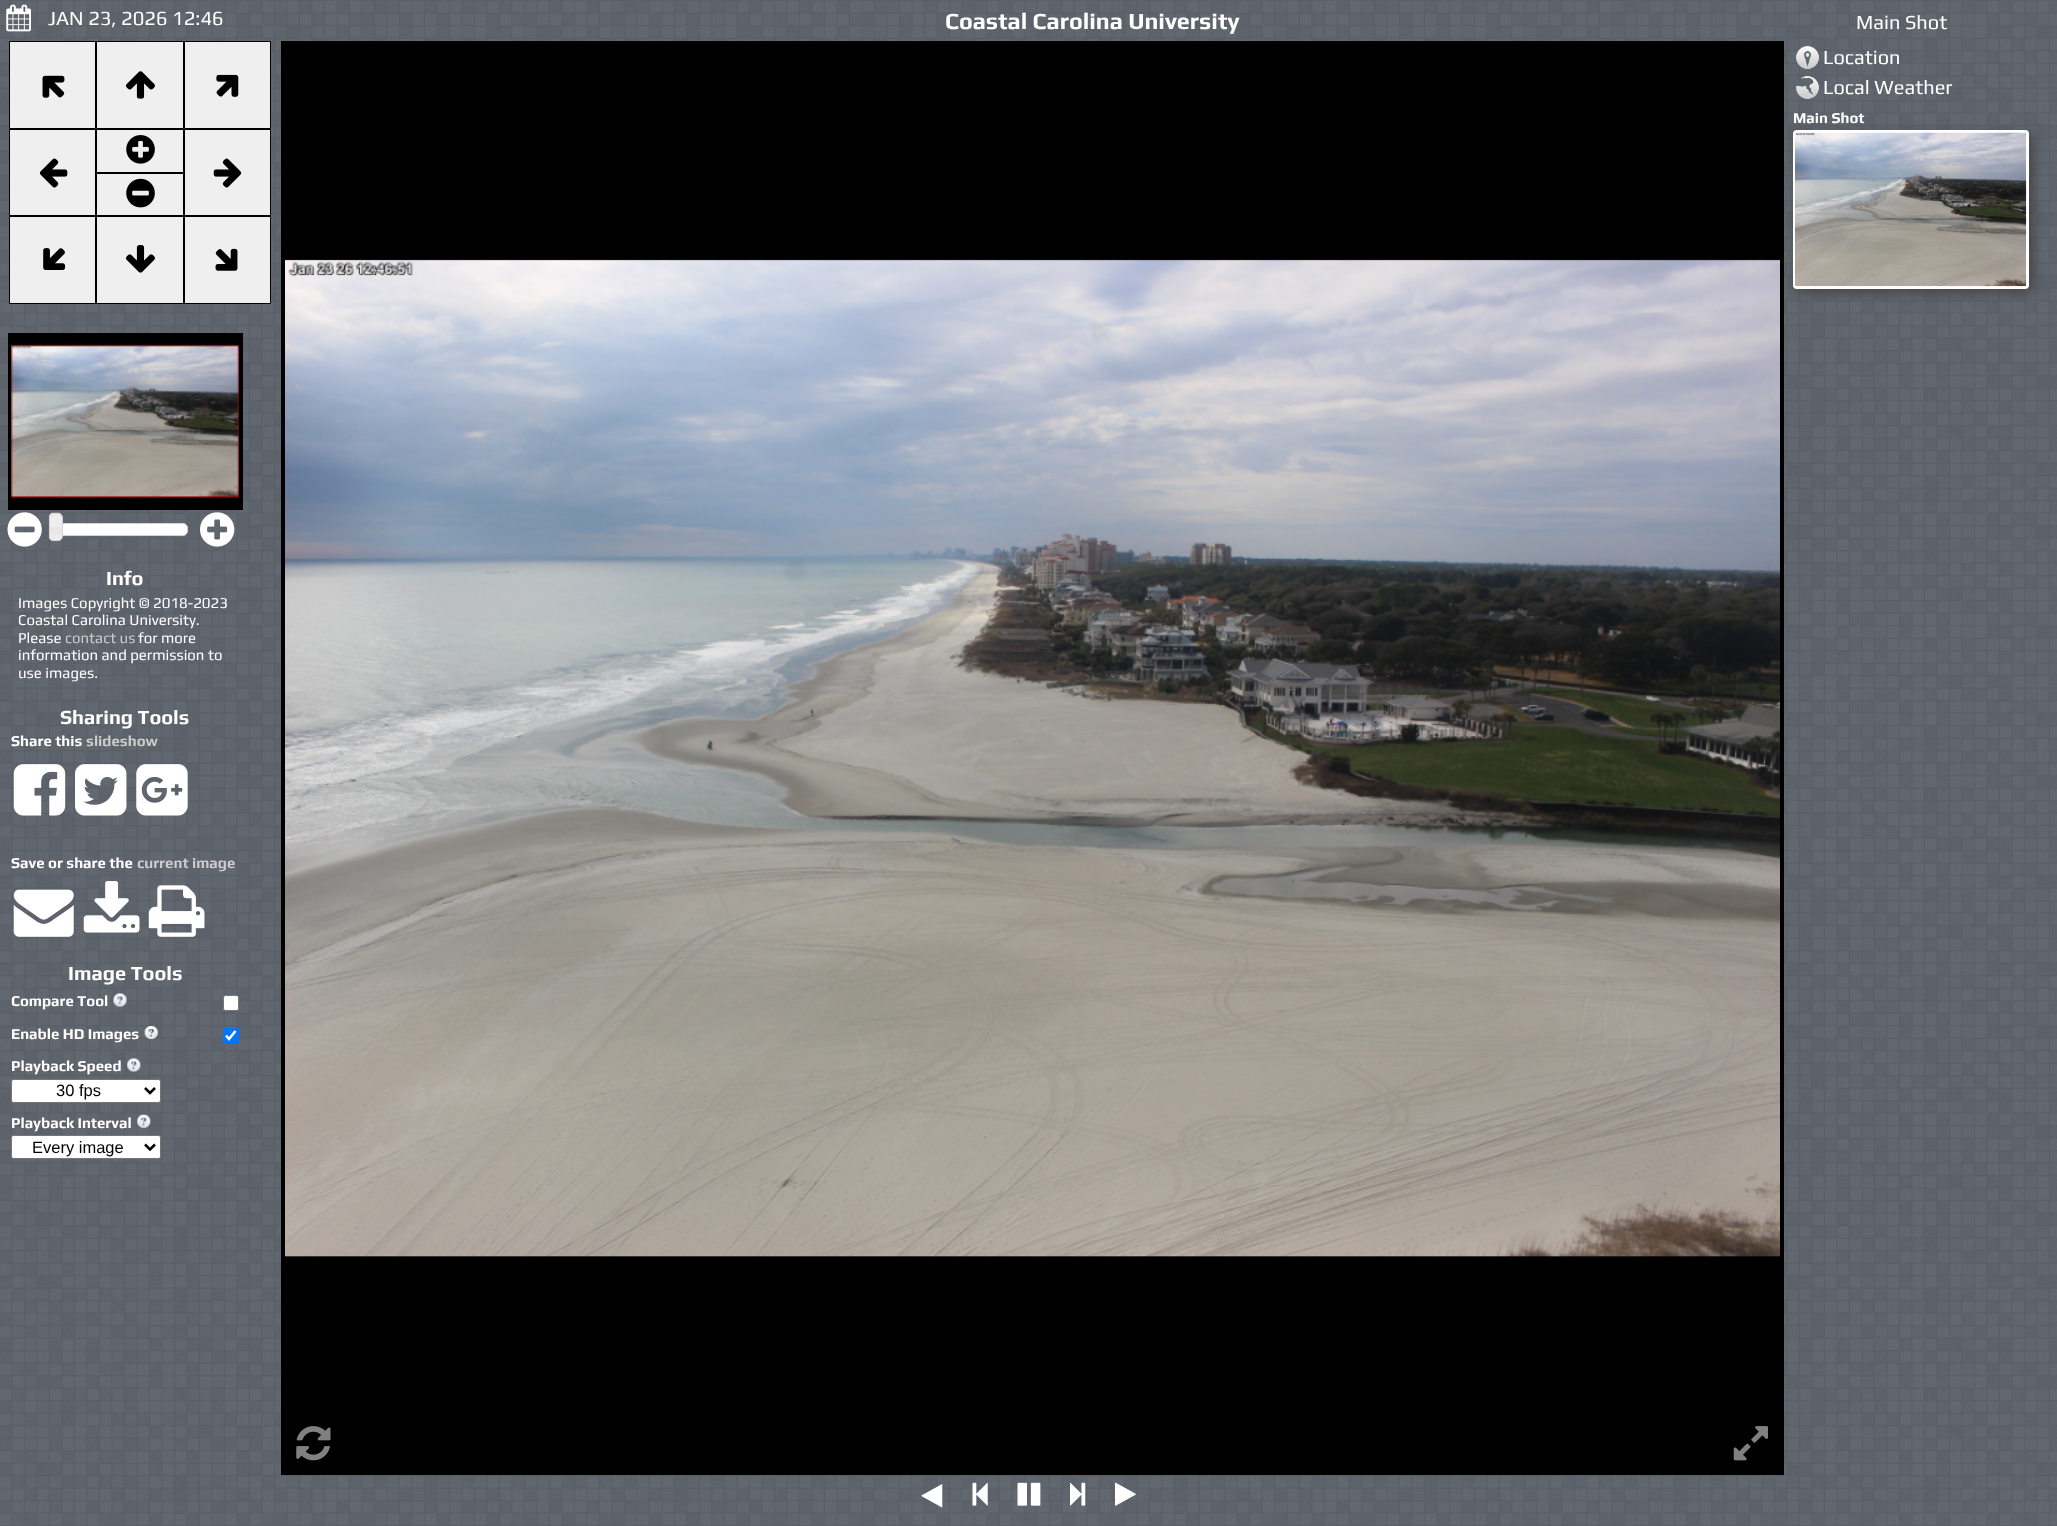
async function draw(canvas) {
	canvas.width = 2057;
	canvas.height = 1526;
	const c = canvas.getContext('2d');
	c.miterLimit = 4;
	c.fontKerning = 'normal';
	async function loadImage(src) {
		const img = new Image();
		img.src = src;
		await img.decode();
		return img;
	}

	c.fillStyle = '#fff';
	c.fillRect(0, 0, 2057, 1526);
	c.drawImage(await loadImage('img1.png'), 0, 0, 2057, 1526);
	c.drawImage(await loadImage('img2.png'), 6, 4, 25, 28);
	c.font = '20px Play';
	c.fillText('JAN 23, 2026 12:46', 48, 25);
	c.font = 'bold 23.3px Play';
	c.fillText('Coastal Carolina University', 945, 29);
	c.font = '20px Play';
	c.fillText('Main Shot', 1856, 29);
	c.fillStyle = '#000';
	c.fillRect(281, 41, 1503, 1434);
	c.drawImage(await loadImage('img3.png'), 285, 259, 1495, 998);
	c.drawImage(await loadImage('img4.png'), 921, 1484, 22, 24);
	c.drawImage(await loadImage('img5.png'), 972, 1482, 16, 24);
	c.drawImage(await loadImage('img6.png'), 1017, 1482, 24, 24);
	c.drawImage(await loadImage('img7.png'), 1070, 1482, 16, 24);
	c.drawImage(await loadImage('img8.png'), 1115, 1482, 21, 24);
	c.drawImage(await loadImage('img9.png'), 1796, 46, 23, 24);
	c.fillStyle = '#fff';
	c.fillText('Location', 1823, 64);
	c.drawImage(await loadImage('img10.png'), 1796, 76, 23, 24);
	c.fillText('Local Weather', 1823, 94);
	c.font = 'bold 15px Play';
	c.fillText('Main Shot', 1793, 123);
	c.save();
	c.beginPath();
	c.rect(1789, 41, 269, 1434);
	c.clip();
	c.fillStyle = '#444';
	c.filter = 'blur(6px)';
	c.beginPath();
	c.roundRect(1796, 134, 237, 159, 4);
	c.fill();
	c.filter = 'none';
	c.restore();
	c.beginPath();
	c.roundRect(1793, 130, 236, 159, 4);
	c.fill();
	c.drawImage(await loadImage('img11.png'), 1795, 132, 232, 155);
	c.fillStyle = '#efefef';
	c.beginPath();
	c.rect(9.5, 41.5, 86, 87);
	c.fill();
	c.strokeStyle = '#000';
	c.stroke();
	c.drawImage(await loadImage('img12.png'), 42, 75, 23, 23);
	c.beginPath();
	c.rect(96.5, 41.5, 87, 87);
	c.fill();
	c.stroke();
	c.drawImage(await loadImage('img13.png'), 126, 71, 29, 28);
	c.beginPath();
	c.rect(184.5, 41.5, 86, 87);
	c.fill();
	c.stroke();
	c.drawImage(await loadImage('img14.png'), 216, 74, 23, 23);
	c.beginPath();
	c.rect(9.5, 129.5, 86, 86);
	c.fill();
	c.stroke();
	c.drawImage(await loadImage('img15.png'), 40, 158, 28, 30);
	c.beginPath();
	c.rect(96.5, 129.5, 87, 43);
	c.fill();
	c.stroke();
	c.drawImage(await loadImage('img16.png'), 126, 135, 29, 29);
	c.beginPath();
	c.rect(184.5, 129.5, 86, 86);
	c.fill();
	c.stroke();
	c.drawImage(await loadImage('img17.png'), 213, 158, 29, 30);
	c.beginPath();
	c.rect(96.5, 173.5, 87, 42);
	c.fill();
	c.stroke();
	c.drawImage(await loadImage('img18.png'), 126, 178, 29, 30);
	c.beginPath();
	c.rect(9.5, 216.5, 86, 87);
	c.fill();
	c.stroke();
	c.drawImage(await loadImage('img19.png'), 43, 248, 23, 22);
	c.beginPath();
	c.rect(96.5, 216.5, 87, 87);
	c.fill();
	c.stroke();
	c.drawImage(await loadImage('img20.png'), 126, 245, 29, 28);
	c.beginPath();
	c.rect(184.5, 216.5, 86, 87);
	c.fill();
	c.stroke();
	c.drawImage(await loadImage('img21.png'), 215, 248, 23, 23);
	c.fillStyle = '#000';
	c.fillRect(8, 333, 235, 177);
	c.drawImage(await loadImage('img22.png'), 11, 344, 228, 155);
	c.drawImage(await loadImage('img23.png'), 7, 512, 35, 35);
	c.fillStyle = '#fff';
	c.beginPath();
	c.roundRect(54.5, 523.5, 133, 12, 4.5);
	c.fill();
	c.strokeStyle = '#d3d3d3';
	c.stroke();
	c.drawImage(await loadImage('img24.png'), 48, 512, 15, 30);
	c.beginPath();
	c.roundRect(49.5, 513.5, 13, 27, 4.5);
	c.stroke();
	c.drawImage(await loadImage('img25.png'), 200, 512, 35, 35);
	c.font = 'bold 20px Play';
	c.fillText('Info', 106, 585);
	c.font = '15px Play';
	for (const [text, x, y] of [
		['Images Copyright © 2018-2023', 18, 608],
		['Coastal Carolina University.', 18, 625],
		['Please', 18, 643],
	]) {
		c.fillText(text, x, y);
	}
	c.fillStyle = '#ccc';
	c.fillText('contact us', 65, 643);
	c.fillStyle = '#fff';
	for (const [text, x, y] of [
		['for more', 138, 643],
		['information and permission to', 18, 660],
		['use images.', 18, 678],
	]) {
		c.fillText(text, x, y);
	}
	c.font = 'bold 20px Play';
	c.fillText('Sharing Tools', 60, 724);
	c.font = 'bold 15px Play';
	c.fillText('Share this', 11, 746);
	c.fillStyle = '#ccc';
	c.fillText('slideshow', 86, 746);
	c.drawImage(await loadImage('img26.png'), 13, 764, 53, 52);
	c.drawImage(await loadImage('img27.png'), 75, 764, 52, 52);
	c.drawImage(await loadImage('img28.png'), 136, 764, 52, 52);
	c.fillStyle = '#fff';
	c.fillText('Save or share the', 11, 868);
	c.fillStyle = '#ccc';
	c.fillText('current image', 137, 868);
	c.drawImage(await loadImage('img29.png'), 13, 889, 61, 48);
	c.drawImage(await loadImage('img30.png'), 83, 881, 57, 52);
	c.drawImage(await loadImage('img31.png'), 148, 885, 57, 52);
	c.font = 'bold 20px Play';
	c.fillStyle = '#fff';
	c.fillText('Image Tools', 68, 980);
	c.font = 'bold 15px Play';
	c.fillText('Compare Tool', 11, 1006);
	c.drawImage(await loadImage('img32.png'), 113, 993, 14, 14);
	c.beginPath();
	c.roundRect(223.5, 995.5, 15, 15, 2);
	c.fill();
	c.strokeStyle = '#767676';
	c.stroke();
	c.fillText('Enable HD Images', 11, 1039);
	c.drawImage(await loadImage('img33.png'), 144, 1026, 14, 13);
	c.fillStyle = '#0075ff';
	c.beginPath();
	c.roundRect(223, 1028, 16, 16, 2.5);
	c.fill();
	c.beginPath();
	c.moveTo(226, 1035.5);
	c.lineTo(229, 1039);
	c.lineTo(235.5, 1031);
	c.strokeStyle = '#fff';
	c.lineWidth = 2.6;
	c.stroke();
	c.fillStyle = '#fff';
	c.fillText('Playback Speed', 11, 1071);
	c.drawImage(await loadImage('img34.png'), 127, 1058, 14, 14);
	c.beginPath();
	c.roundRect(11.5, 1079.5, 149, 23, 2);
	c.fill();
	c.strokeStyle = '#767676';
	c.lineWidth = 1;
	c.stroke();
	c.beginPath();
	c.moveTo(145, 1088);
	c.lineTo(150, 1093);
	c.lineTo(155, 1088);
	c.strokeStyle = '#000';
	c.lineWidth = 2.5;
	c.stroke();
	c.font = '16.5px Liberation Sans';
	c.fillStyle = '#000';
	c.fillText('30 fps', 56, 1096);
	c.font = 'bold 15px Play';
	c.fillStyle = '#fff';
	c.fillText('Playback Interval', 11, 1128);
	c.drawImage(await loadImage('img35.png'), 137, 1114, 14, 14);
	c.beginPath();
	c.roundRect(11.5, 1135.5, 149, 23, 2);
	c.fill();
	c.strokeStyle = '#767676';
	c.lineWidth = 1;
	c.stroke();
	c.beginPath();
	c.moveTo(145, 1144.5);
	c.lineTo(150, 1149.5);
	c.lineTo(155, 1144.5);
	c.strokeStyle = '#000';
	c.lineWidth = 2.5;
	c.stroke();
	c.font = '16.5px Liberation Sans';
	c.fillStyle = '#000';
	c.fillText('Every image', 32, 1153);
	c.drawImage(await loadImage('img36.png'), 296, 1426, 35, 35);
	c.drawImage(await loadImage('img37.png'), 1733, 1426, 35, 35);
}

draw(document.querySelector('canvas'));
